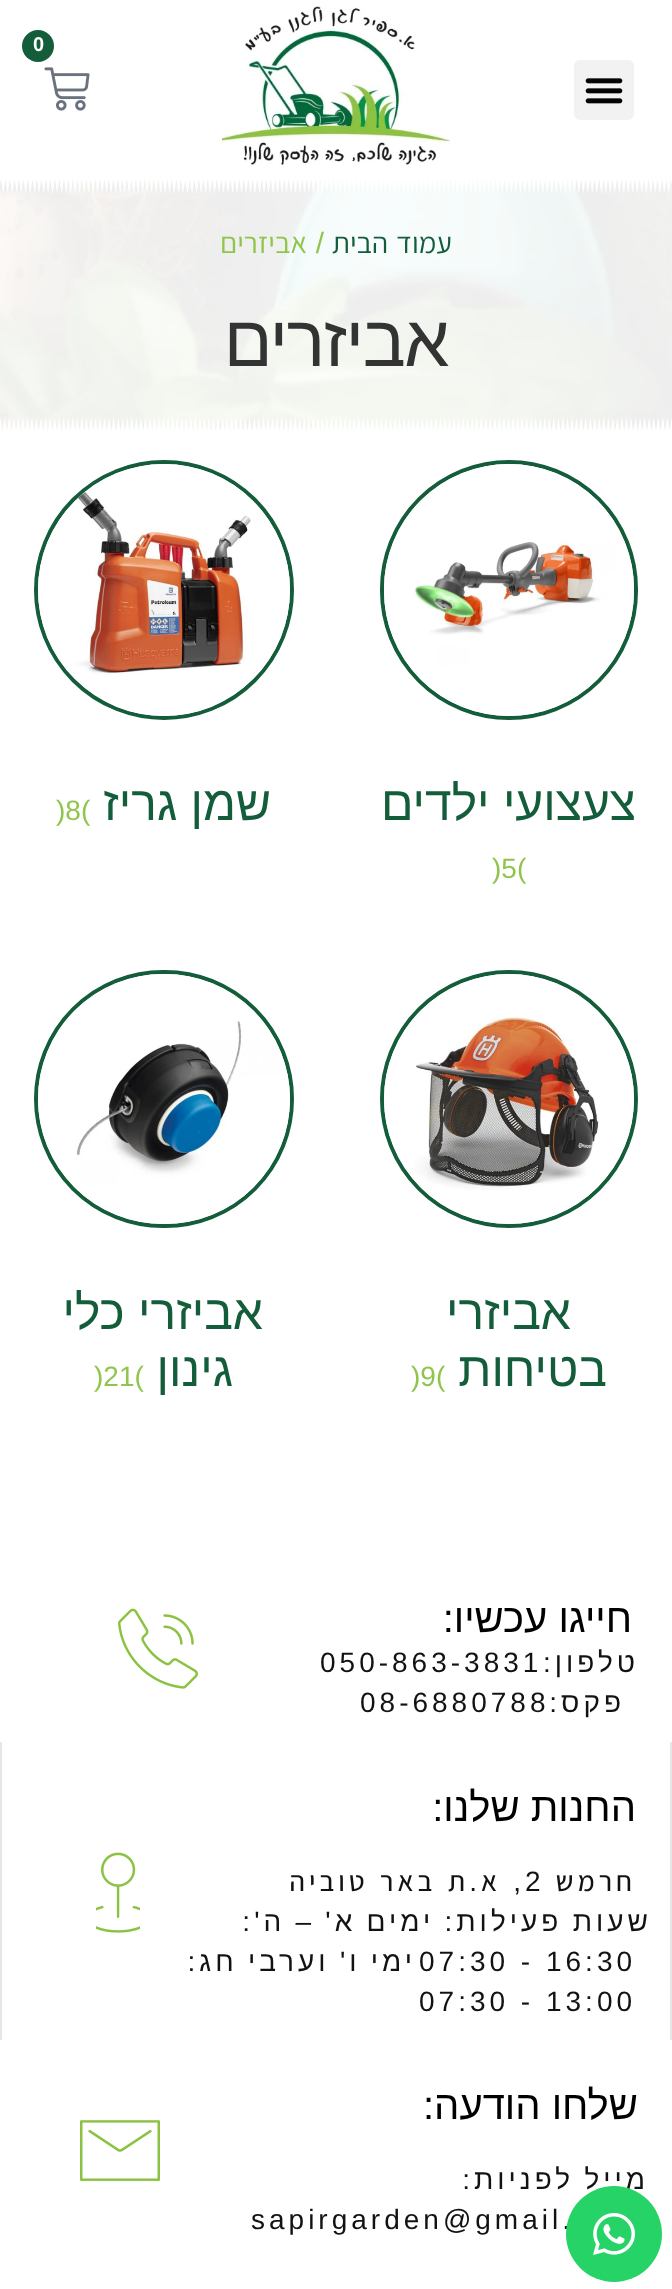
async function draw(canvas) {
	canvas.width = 672;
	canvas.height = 2289;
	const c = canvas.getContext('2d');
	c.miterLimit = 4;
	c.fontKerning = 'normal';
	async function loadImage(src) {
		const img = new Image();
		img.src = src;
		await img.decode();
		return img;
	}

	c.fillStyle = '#fff';
	c.fillRect(0, 0, 672, 2289);
	c.drawImage(await loadImage('img1.png'), 222, 6, 228, 159);
	c.fillStyle = '#145d3b';
	c.beginPath();
	c.arc(38, 46, 16, 0, 2 * Math.PI);
	c.fill();
	c.font = 'bold 20px Liberation Sans';
	c.fillStyle = '#fff';
	c.fillText('0', 33, 51);
	c.drawImage(await loadImage('img2.png'), 44, 67, 46, 44);
	c.fillStyle = '#f2f2f2';
	c.beginPath();
	c.roundRect(574, 60, 60, 60, 6);
	c.fill();
	c.drawImage(await loadImage('img3.png'), 585, 78, 38, 26);
	c.drawImage(await loadImage('img4.png'), 0, 180, 672, 250);
	c.drawImage(await loadImage('img5.png'), 0, 180, 672, 13);
	c.wordSpacing = '2px';
	c.direction = 'rtl';
	c.font = '29.5px Assistant';
	c.fillStyle = '#145d3b';
	c.fillText('עמוד הבית', 452, 253);
	c.wordSpacing = '0px';
	c.font = '29.5px Liberation Sans';
	c.fillStyle = '#90c54b';
	c.fillText('/', 324, 253);
	c.font = '29.5px Assistant';
	c.fillText('אביזרים', 307, 253);
	c.letterSpacing = '-1.5px';
	c.font = '72px Liberation Sans';
	c.fillStyle = '#333';
	c.fillText('אביזרים', 448, 366);
	c.drawImage(await loadImage('img6.png'), 0, 417, 672, 13);
	c.beginPath();
	c.roundRect(382, 462, 254, 256, 127);
	c.strokeStyle = '#145d3b';
	c.lineWidth = 4;
	c.stroke();
	c.drawImage(await loadImage('img7.png'), 384, 464, 250, 252);
	c.letterSpacing = '0px';
	c.font = '48px Liberation Sans';
	c.fillStyle = '#145d3b';
	c.fillText('צעצועי ילדים', 636, 820);
	c.direction = 'ltr';
	c.font = '28px Liberation Sans';
	c.fillStyle = '#90c54b';
	c.fillText(')5(', 492, 878);
	c.beginPath();
	c.arc(164, 590, 128, 0, 2 * Math.PI);
	c.stroke();
	c.drawImage(await loadImage('img8.png'), 38, 464, 252, 252);
	c.direction = 'rtl';
	c.font = '48px Liberation Sans';
	c.fillStyle = '#145d3b';
	c.fillText('שמן גריז', 271, 820);
	c.direction = 'ltr';
	c.font = '28px Liberation Sans';
	c.fillStyle = '#90c54b';
	c.fillText(')8(', 56, 820);
	c.beginPath();
	c.arc(509, 1099, 127, 0, 2 * Math.PI);
	c.stroke();
	c.drawImage(await loadImage('img9.png'), 384, 974, 250, 250);
	c.direction = 'rtl';
	c.font = '48px Liberation Sans';
	c.fillStyle = '#145d3b';
	c.fillText('אביזרי', 571, 1329);
	c.fillText('בטיחות', 607, 1386);
	c.direction = 'ltr';
	c.font = '28px Liberation Sans';
	c.fillStyle = '#90c54b';
	c.fillText(')9(', 411, 1386);
	c.beginPath();
	c.roundRect(36, 972, 256, 254, 127);
	c.stroke();
	c.drawImage(await loadImage('img10.png'), 38, 974, 252, 250);
	c.direction = 'rtl';
	c.font = '48px Liberation Sans';
	c.fillStyle = '#145d3b';
	c.fillText('אביזרי כלי', 263, 1329);
	c.fillText('גינון', 233, 1386);
	c.direction = 'ltr';
	c.font = '28px Liberation Sans';
	c.fillStyle = '#90c54b';
	c.fillText(')21(', 94, 1386);
	c.direction = 'rtl';
	c.font = '40px Liberation Sans';
	c.fillStyle = '#000';
	c.fillText('חייגו עכשיו:', 632, 1632);
	c.letterSpacing = '4px';
	c.font = '28px Liberation Sans';
	c.fillStyle = '#121212';
	c.fillText('טלפון:', 639, 1672);
	c.direction = 'ltr';
	c.fillText('050-863-3831', 320, 1672);
	c.direction = 'rtl';
	c.fillText('פקס:', 625, 1712);
	c.direction = 'ltr';
	c.fillText('08-6880788', 360, 1712);
	c.drawImage(await loadImage('img11.png'), 118, 1608, 80, 81);
	c.fillStyle = '#e6e6e6';
	c.fillRect(670, 1742, 2, 298);
	c.fillRect(0, 1742, 2, 298);
	c.letterSpacing = '0px';
	c.direction = 'rtl';
	c.font = '40px Liberation Sans';
	c.fillStyle = '#000';
	c.fillText('החנות שלנו:', 636, 1821);
	c.letterSpacing = '4px';
	c.font = '500 28px Assistant';
	c.fillStyle = '#121212';
	c.fillText('חרמש', 636, 1891);
	c.direction = 'ltr';
	c.font = '28px Liberation Sans';
	c.fillText('2', 525, 1891);
	c.direction = 'rtl';
	c.fillText(',', 525, 1891);
	c.font = '500 28px Assistant';
	c.fillText('א', 501, 1891);
	c.font = '28px Liberation Sans';
	c.fillText('.', 481, 1891);
	c.wordSpacing = '2px';
	c.font = '500 28px Assistant';
	c.fillText('ת באר טוביה', 469, 1891);
	c.wordSpacing = '-1.5px';
	c.font = '28px Liberation Sans';
	c.fillText('שעות פעילות: ימים א\' – ה\':', 652, 1931);
	c.wordSpacing = '0px';
	c.direction = 'ltr';
	c.fillText('07:30 - 16:30', 419, 1971);
	c.wordSpacing = '-1.5px';
	c.direction = 'rtl';
	c.fillText('ימי ו\' וערבי חג:', 416, 1971);
	c.wordSpacing = '0px';
	c.direction = 'ltr';
	c.fillText('07:30 - 13:00', 419, 2011);
	c.drawImage(await loadImage('img12.png'), 96, 1852, 44, 81);
	c.letterSpacing = '0px';
	c.direction = 'rtl';
	c.font = '40px Liberation Sans';
	c.fillStyle = '#000';
	c.fillText('שלחו הודעה:', 638, 2119);
	c.letterSpacing = '4px';
	c.wordSpacing = '-1.5px';
	c.font = '28px Liberation Sans';
	c.fillStyle = '#121212';
	c.fillText('מייל לפניות:', 649, 2189);
	c.wordSpacing = '0px';
	c.direction = 'ltr';
	c.fillText('sapirgarden@gmail.', 251, 2229);
	c.drawImage(await loadImage('img13.png'), 80, 2120, 80, 61);
	c.fillStyle = '#25d366';
	c.beginPath();
	c.arc(614, 2234, 48, 0, 2 * Math.PI);
	c.fill();
	c.drawImage(await loadImage('img14.png'), 593, 2213, 42, 42);
}

draw(document.querySelector('canvas'));
